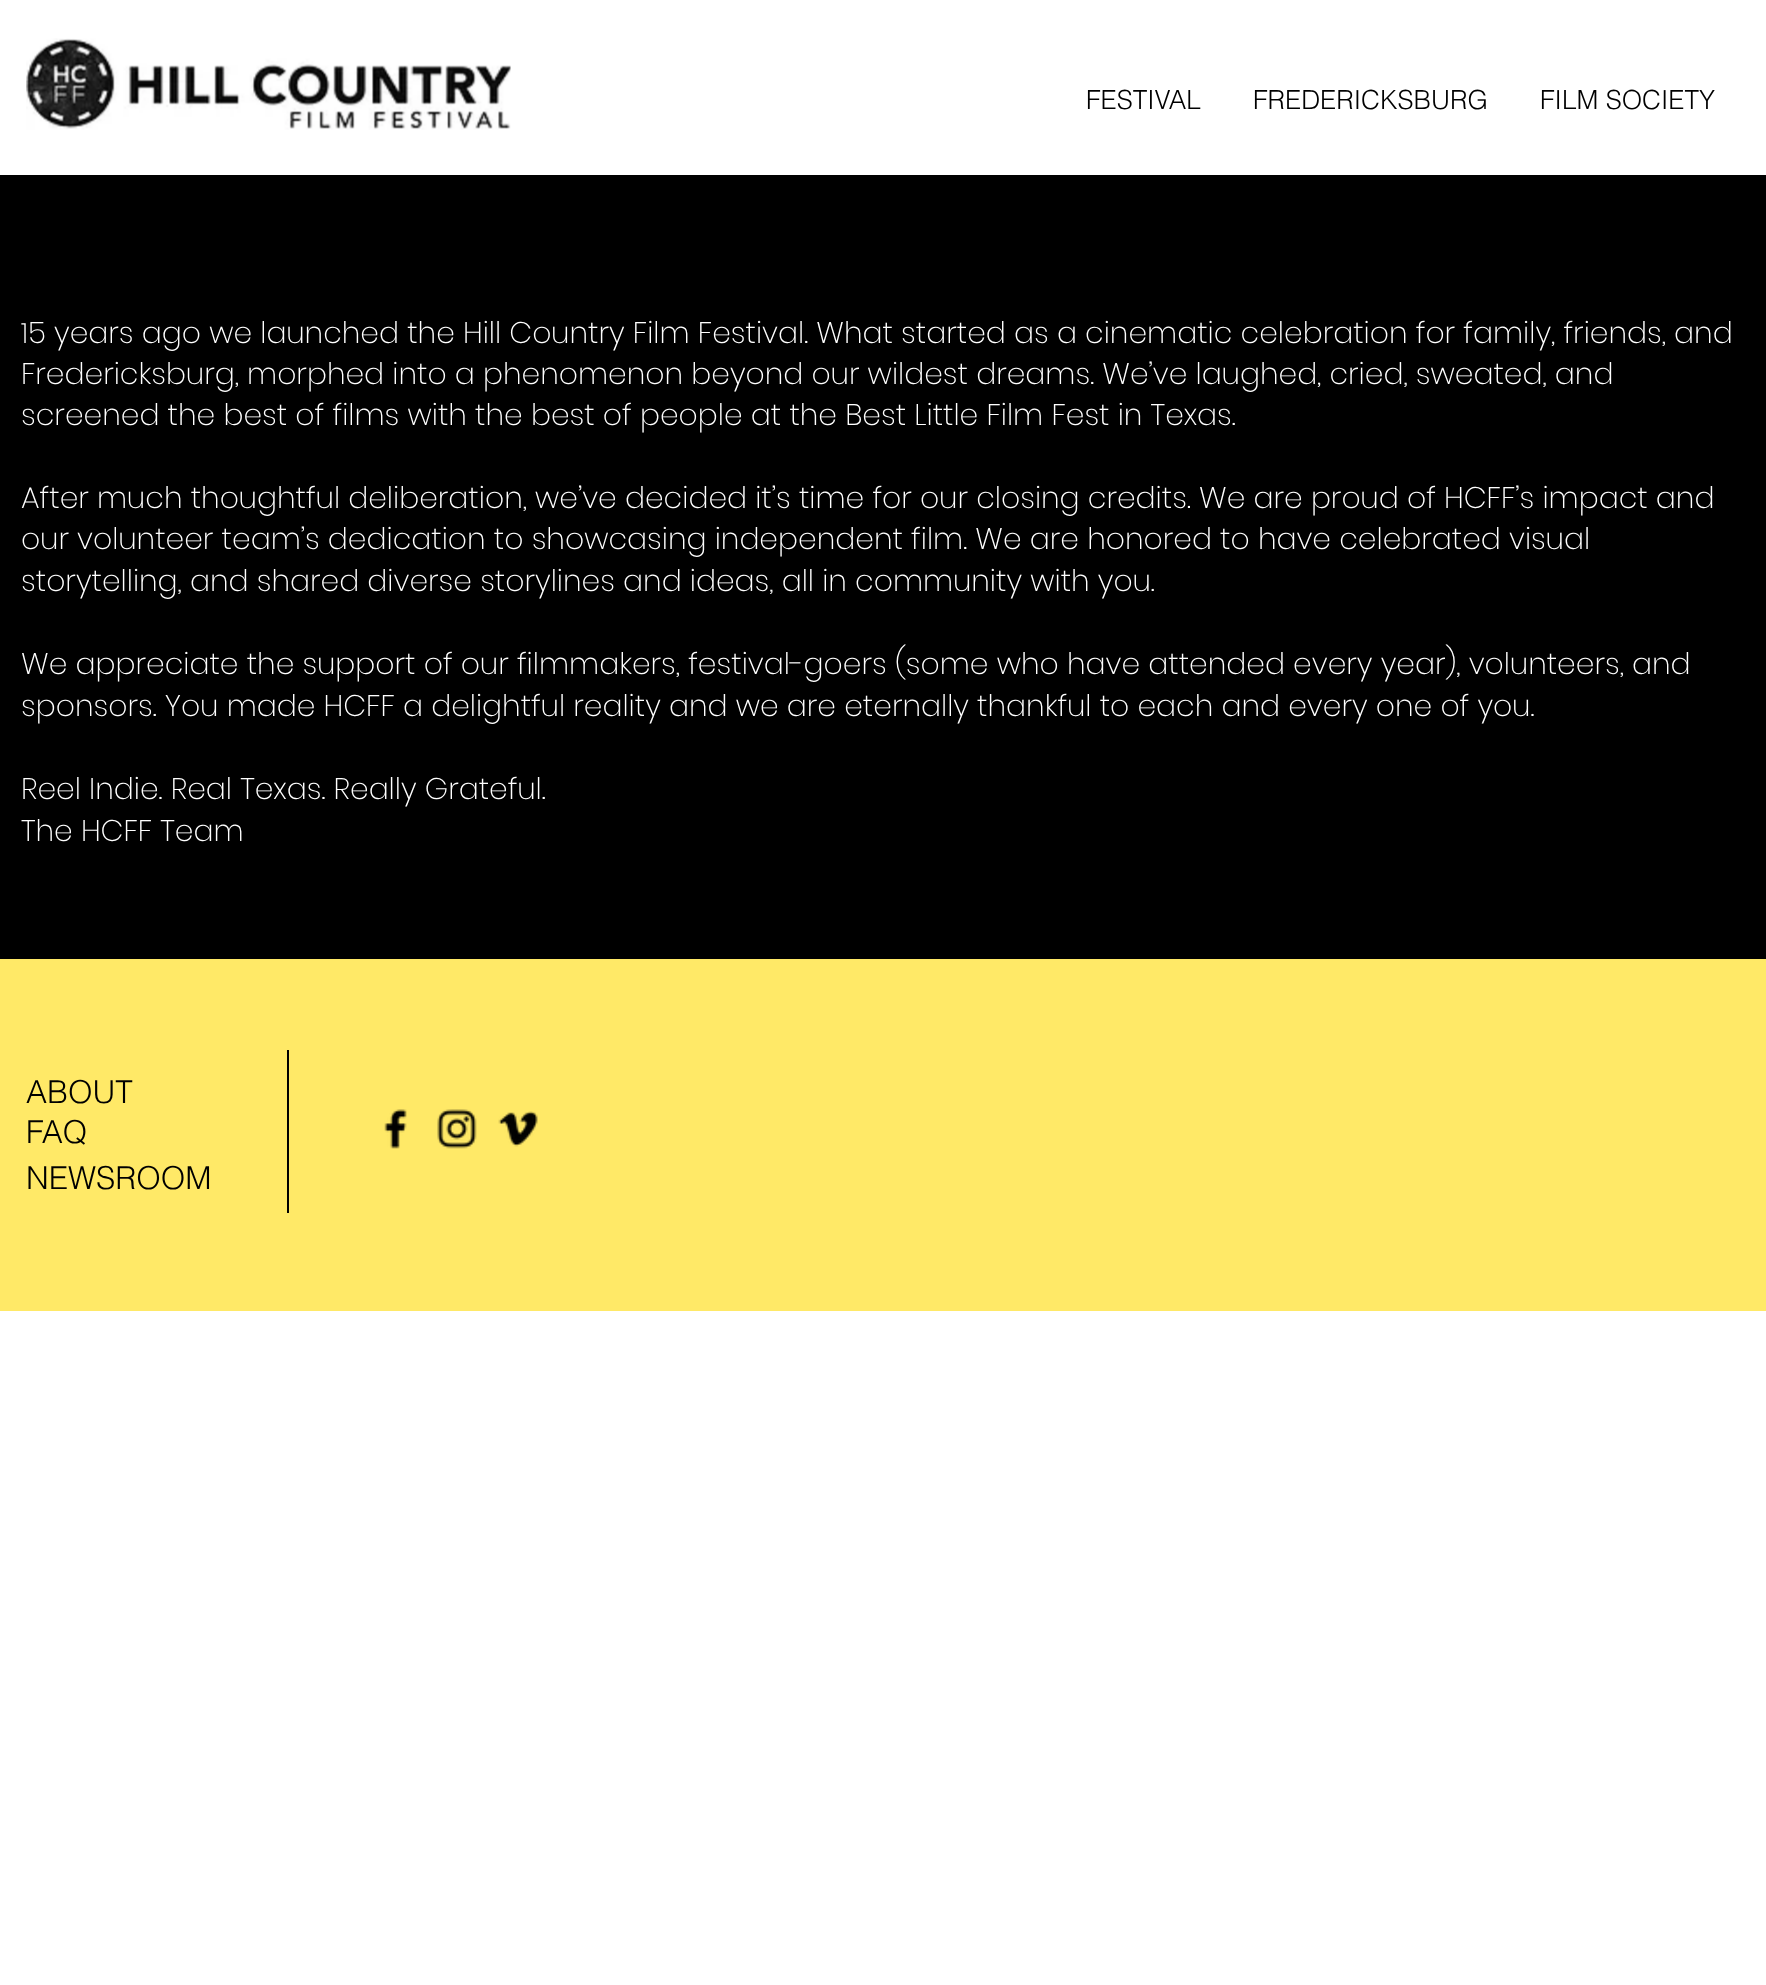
async function draw(canvas) {
	canvas.width = 1766;
	canvas.height = 1985;
	const c = canvas.getContext('2d');
	c.miterLimit = 4;
	c.fontKerning = 'normal';
	async function loadImage(src) {
		const img = new Image();
		img.src = src;
		await img.decode();
		return img;
	}

	c.fillStyle = '#fff';
	c.fillRect(0, 0, 1766, 1985);
	c.drawImage(await loadImage('img1.png'), 26, 38, 485, 92);
	c.font = '300 26.25px helvetica';
	c.fillStyle = '#000';
	for (const [text, x, y] of [
		['FESTIVAL', 1086, 109],
		['FREDERICKSBURG', 1253, 109],
		['FILM SOCIETY', 1540, 109],
	]) {
		c.fillText(text, x, y);
	}
	c.fillRect(0, 175, 1766, 784);
	c.font = '200 28px Poppins';
	c.fillStyle = '#fff';
	c.fillText('1', 21, 343);
	c.font = '200 29.75px Poppins';
	for (const [text, x, y] of [
		['5 years ago we launched the Hill Country Film Festival. What started as a cinematic celebration for family, friends, and', 28, 343],
		['Fredericksburg, morphed into a phenomenon beyond our wildest dreams. We’ve laughed, cried, sweated, and', 21, 384],
		['screened the best of films with the best of people at the Best Little Film Fest in Texas.', 21, 425],
		['After much thoughtful deliberation, we’ve decided it’s time for our closing credits. We are proud of HCFF’s impact and', 21, 508],
		['our volunteer team’s dedication to showcasing independent film. We are honored to have celebrated visual', 21, 549],
		['storytelling, and shared diverse storylines and ideas, all in community with you.', 21, 591],
		['We appreciate the support of our filmmakers, festival-goers (some who have attended every year), volunteers, and', 21, 674],
		['sponsors. You made HCFF a delightful reality and we are eternally thankful to each and every one of you.', 21, 716],
		['Reel Indie. Real Texas. Really Grateful.', 21, 799],
		['The HCFF Team', 21, 841],
	]) {
		c.fillText(text, x, y);
	}
	c.fillStyle = '#ffe967';
	c.fillRect(0, 959, 1766, 352);
	c.font = '300 31.5px helvetica';
	c.fillStyle = '#000';
	for (const [text, x, y] of [
		['ABOUT', 26, 1103],
		['FAQ', 26, 1143],
		['NEWSROOM', 26, 1189],
	]) {
		c.fillText(text, x, y);
	}
	c.fillRect(287, 1050, 2, 163);
	c.drawImage(await loadImage('img2.png'), 384, 1109, 23, 40);
	c.drawImage(await loadImage('img3.png'), 437, 1109, 40, 40);
	c.drawImage(await loadImage('img4.png'), 498, 1111, 40, 36);
}

draw(document.querySelector('canvas'));
